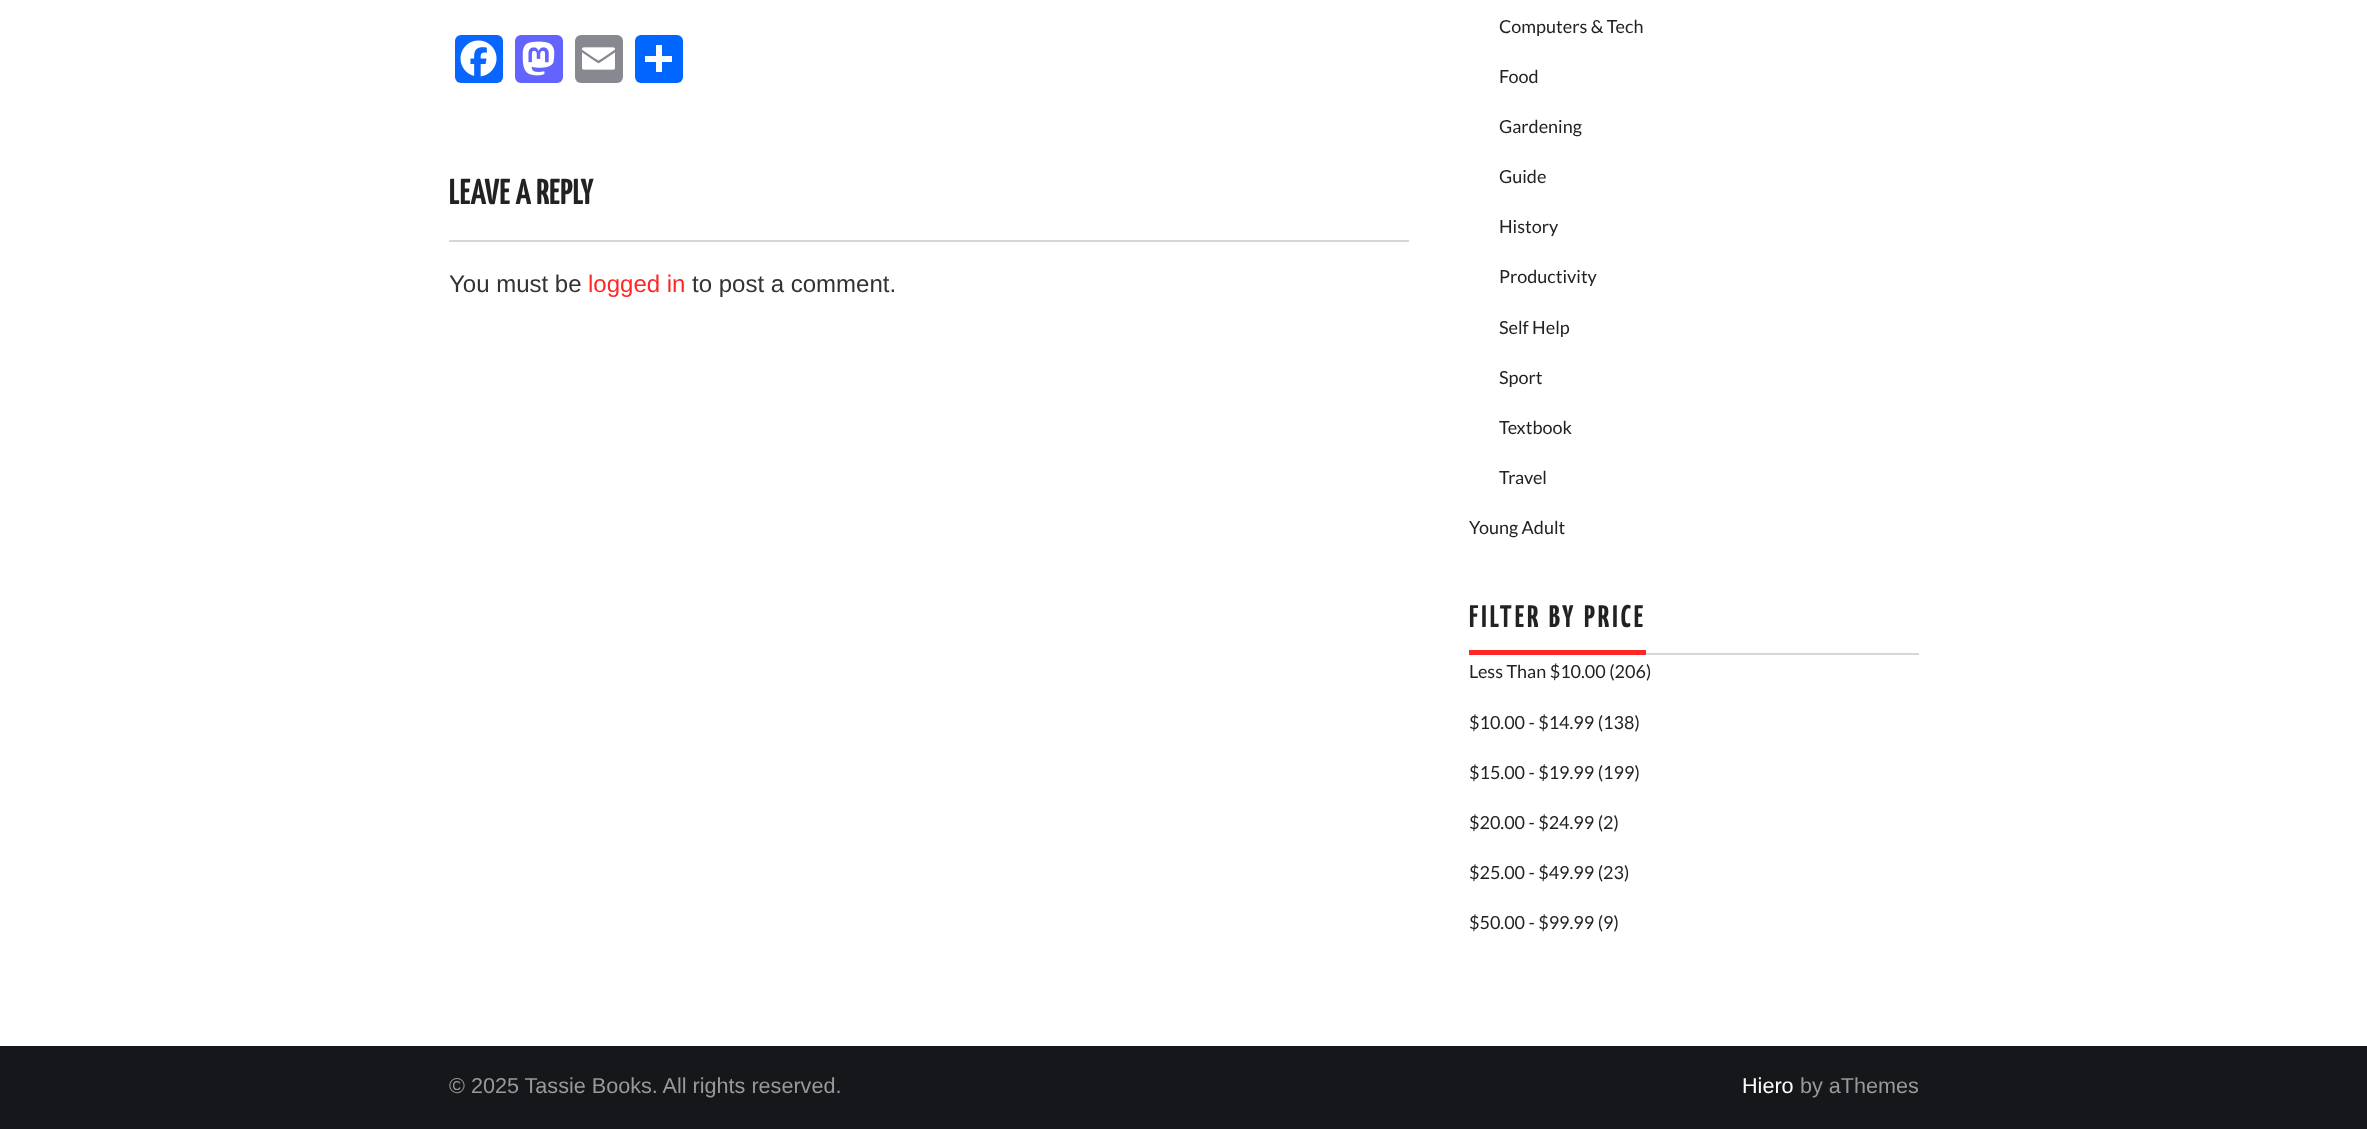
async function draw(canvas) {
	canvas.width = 2367;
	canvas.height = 1129;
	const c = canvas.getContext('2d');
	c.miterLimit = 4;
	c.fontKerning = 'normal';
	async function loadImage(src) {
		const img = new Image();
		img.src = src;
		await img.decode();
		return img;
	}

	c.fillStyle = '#fff';
	c.fillRect(0, 0, 2367, 1129);
	c.fillStyle = '#0866ff';
	c.beginPath();
	c.roundRect(455, 35, 48, 48, 6);
	c.fill();
	c.drawImage(await loadImage('img1.png'), 460, 40, 37, 37);
	c.fillStyle = '#6364ff';
	c.beginPath();
	c.roundRect(515, 35, 48, 48, 6);
	c.fill();
	c.drawImage(await loadImage('img2.png'), 522, 41, 33, 35);
	c.fillStyle = '#888990';
	c.beginPath();
	c.roundRect(575, 35, 48, 48, 6);
	c.fill();
	c.drawImage(await loadImage('img3.png'), 582, 47, 33, 23);
	c.fillStyle = '#0166ff';
	c.beginPath();
	c.roundRect(635, 35, 48, 48, 6);
	c.fill();
	for (const [x, y, w, h, color] of [
		[656, 45, 6, 27, '#fff'],
		[645, 56, 27, 6, '#fff'],
		[449, 240, 960, 2, '#d6d6d6'],
	]) {
		c.fillStyle = color;
		c.fillRect(x, y, w, h);
	}
	c.font = 'bold 36px Yanone Kaffeesatz';
	c.fillStyle = '#222';
	c.fillText('LEAVE A REPLY', 449, 204);
	c.font = '24px Liberation Sans';
	c.fillStyle = '#333';
	c.fillText('You must be', 449, 292);
	c.fillStyle = '#ff2828';
	c.fillText('logged in', 588, 292);
	c.fillStyle = '#333';
	c.fillText('to post a comment.', 692, 292);
	c.font = '18px Lato';
	c.fillStyle = '#222';
	for (const [text, x, y] of [
		['Computers & Tech', 1499, 33],
		['Food', 1499, 83],
		['Gardening', 1499, 133],
		['Guide', 1499, 183],
		['History', 1499, 233],
		['Productivity', 1499, 283],
		['Self Help', 1499, 334],
		['Sport', 1499, 384],
		['Textbook', 1499, 434],
		['Travel', 1499, 484],
		['Young Adult', 1469, 534],
	]) {
		c.fillText(text, x, y);
	}
	c.fillStyle = '#d6d6d6';
	c.fillRect(1646, 653, 273, 2);
	c.fillStyle = '#ff2828';
	c.fillRect(1469, 650, 177, 5);
	c.letterSpacing = '3px';
	c.font = 'bold 31.25px Yanone Kaffeesatz';
	c.fillStyle = '#222';
	c.fillText('FILTER BY PRICE', 1469, 627);
	c.letterSpacing = '0px';
	c.font = '18px Lato';
	for (const [text, x, y] of [
		['Less Than $10.00 (206)', 1469, 678],
		['$10.00 - $14.99 (138)', 1469, 729],
		['$15.00 - $19.99 (199)', 1469, 779],
		['$20.00 - $24.99 (2)', 1469, 829],
		['$25.00 - $49.99 (23)', 1469, 879],
		['$50.00 - $99.99 (9)', 1469, 929],
	]) {
		c.fillText(text, x, y);
	}
	c.fillStyle = '#16171b';
	c.fillRect(0, 1046, 2367, 83);
	c.font = '21.6px Liberation Sans';
	c.fillStyle = '#999';
	c.fillText('© 2025 Tassie Books. All rights reserved.', 449, 1093);
	c.fillStyle = '#fff';
	c.fillText('Hiero', 1742, 1093);
	c.fillStyle = '#999';
	c.fillText('by aThemes', 1800, 1093);
}

draw(document.querySelector('canvas'));
